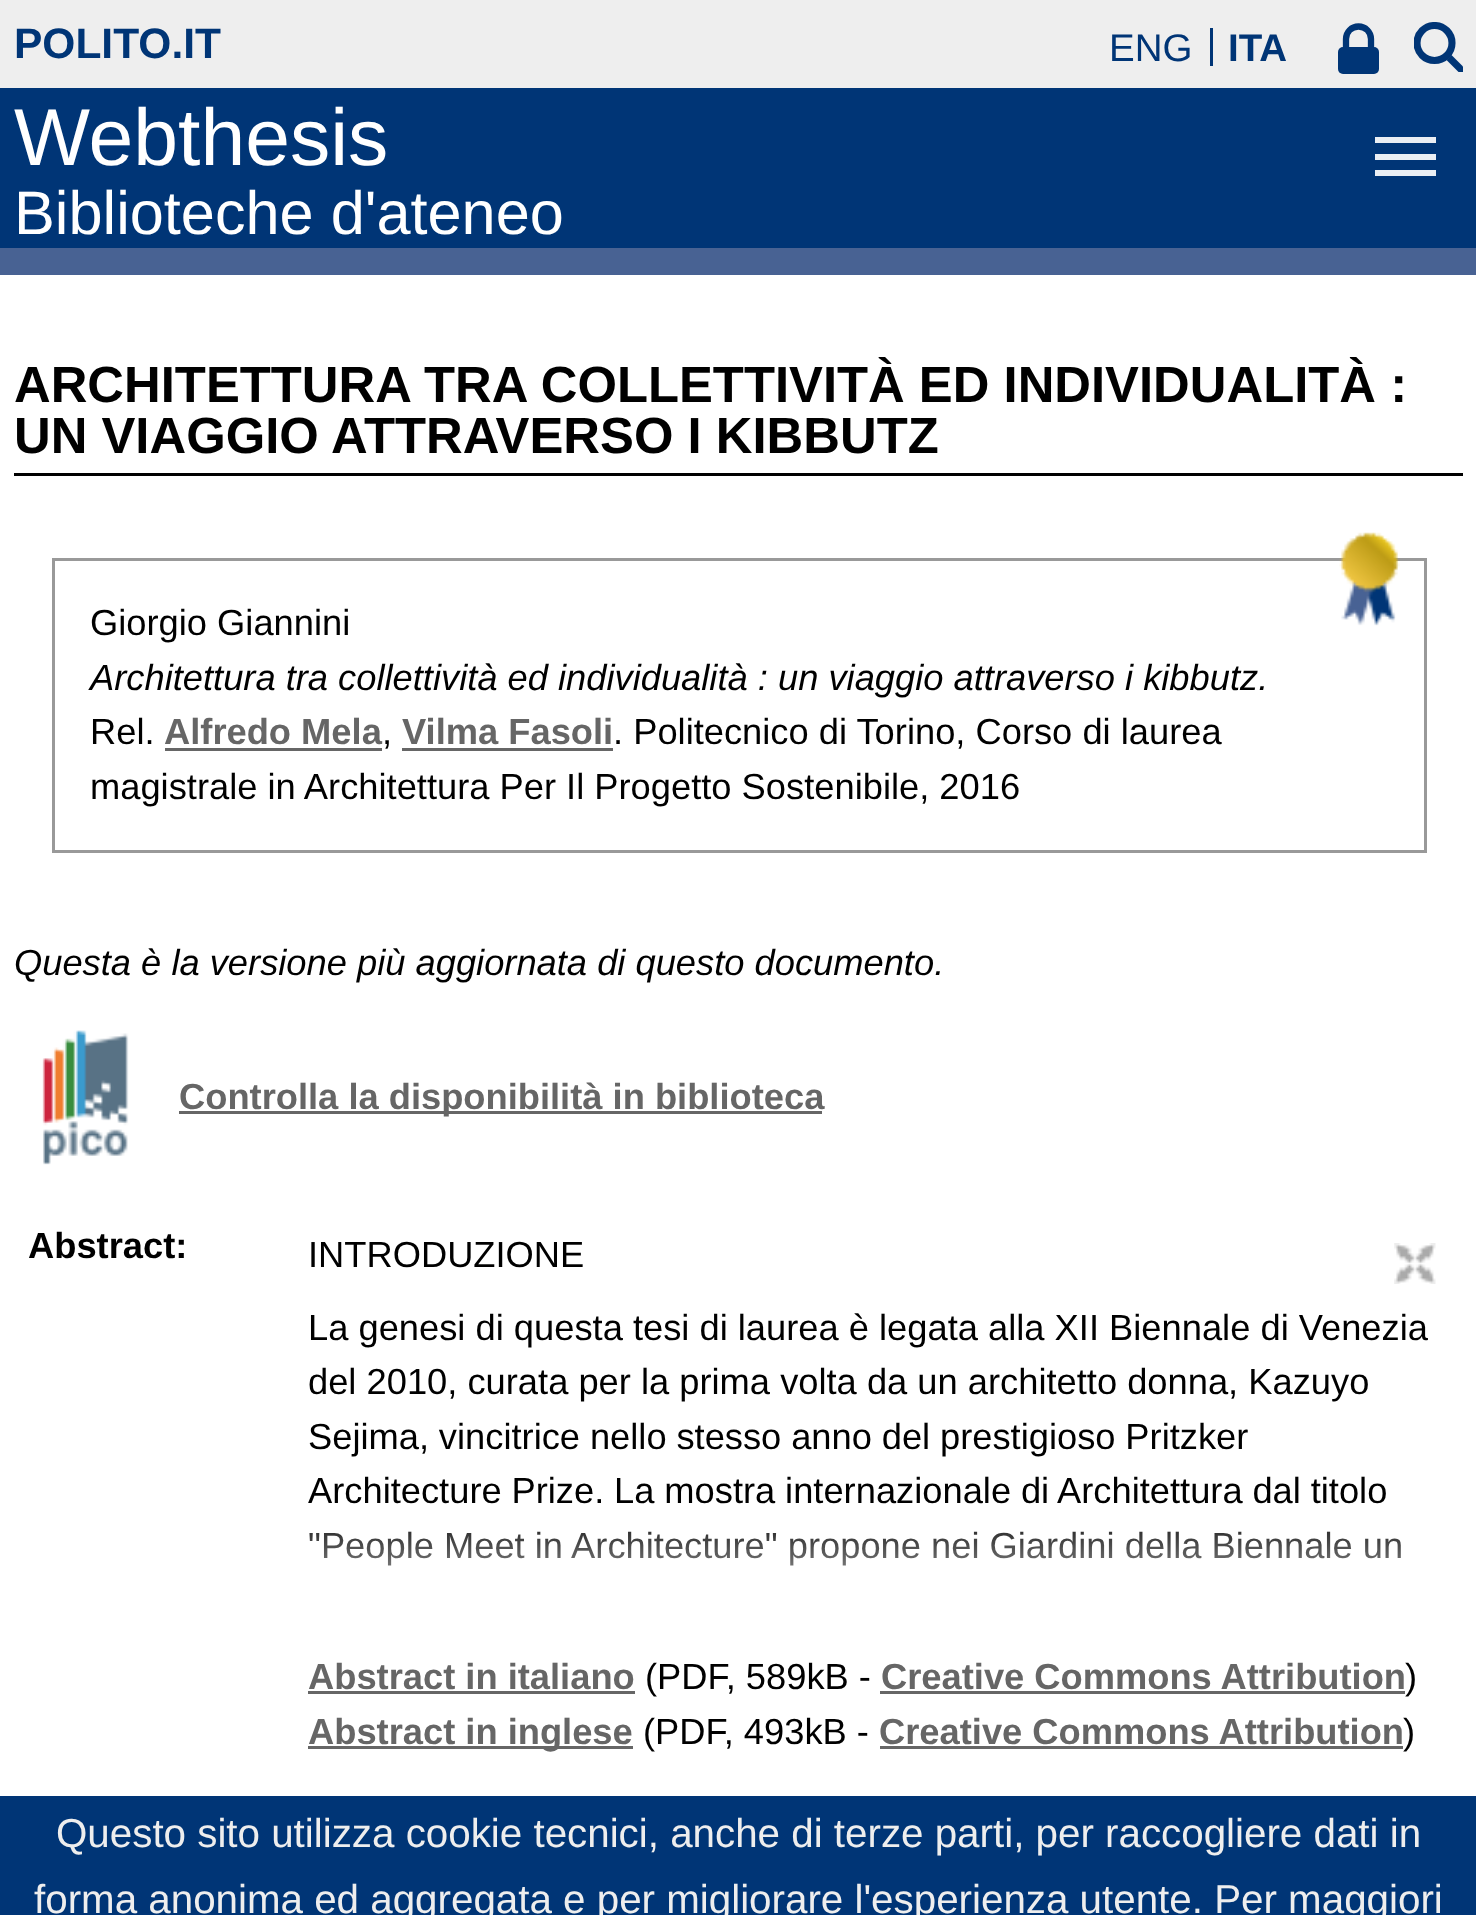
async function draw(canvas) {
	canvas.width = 1476;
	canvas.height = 1915;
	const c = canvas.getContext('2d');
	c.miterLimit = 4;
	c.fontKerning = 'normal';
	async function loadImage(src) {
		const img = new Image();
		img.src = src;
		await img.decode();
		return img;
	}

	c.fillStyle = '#fff';
	c.fillRect(0, 0, 1476, 1915);
	c.fillStyle = '#eee';
	c.fillRect(0, 0, 1476, 88);
	c.font = 'bold 42.5px Liberation Sans';
	c.fillStyle = '#003576';
	c.fillText('POLITO.IT', 14, 58);
	c.fillRect(1210, 28, 3, 38);
	c.font = '38.5px Liberation Sans';
	c.fillText('ENG', 1109, 61);
	c.font = 'bold 38.5px Liberation Sans';
	c.fillText('ITA', 1228, 61);
	c.beginPath();
	c.moveTo(1346, 47);
	c.lineTo(1346, 39);
	c.bezierCurveTo(1346, 32, 1351.5, 26.5, 1358.5, 26.5);
	c.bezierCurveTo(1365.5, 26.5, 1371, 32, 1371, 39);
	c.lineTo(1371, 47);
	c.strokeStyle = '#003576';
	c.lineWidth = 6.3;
	c.stroke();
	c.beginPath();
	c.roundRect(1338, 47, 41, 27, 5);
	c.fill();
	c.save();
	c.beginPath();
	c.rect(1414, 22, 49, 50);
	c.clip();
	c.beginPath();
	c.arc(1434.5, 43, 17.5, 0, 2 * Math.PI);
	c.lineWidth = 7.1;
	c.stroke();
	c.beginPath();
	c.moveTo(1449, 57.5);
	c.lineTo(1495, 103.5);
	c.stroke();
	c.restore();
	c.fillRect(0, 88, 1476, 160);
	c.font = '80.5px Liberation Sans';
	c.fillStyle = '#fff';
	c.fillText('Webthesis', 14, 165);
	c.font = '61.25px Liberation Sans';
	c.fillText('Biblioteche d\'ateneo', 14, 234);
	for (const [x, y, w, h, color] of [
		[1375, 137, 61, 6, '#eaeef4'],
		[1375, 154, 61, 6, '#eaeef4'],
		[1375, 170, 61, 6, '#eaeef4'],
		[0, 248, 1476, 27, '#486293'],
		[14, 473, 1449, 3, '#000'],
	]) {
		c.fillStyle = color;
		c.fillRect(x, y, w, h);
	}
	c.font = 'bold 50.8px Liberation Sans';
	c.fillText('ARCHITETTURA TRA COLLETTIVITÀ ED INDIVIDUALITÀ :', 14, 402);
	c.fillText('UN VIAGGIO ATTRAVERSO I KIBBUTZ', 14, 453);
	c.strokeStyle = '#999';
	c.lineWidth = 3;
	c.strokeRect(53.5, 559.5, 1372, 292);
	c.font = '36.3px Liberation Sans';
	c.fillText('Giorgio Giannini', 90, 635);
	c.drawImage(await loadImage('img1.png'), 1339, 532, 61, 94);
	c.font = 'italic 36.3px Liberation Sans';
	c.fillText('Architettura tra collettività ed individualità : un viaggio attraverso i kibbutz.', 90, 690);
	c.font = '36.3px Liberation Sans';
	c.fillText('Rel.', 90, 744);
	c.font = 'bold 36.3px Liberation Sans';
	c.fillStyle = '#666';
	c.fillText('Alfredo Mela', 164, 744);
	c.fillRect(165, 748, 217, 3);
	c.font = '36.3px Liberation Sans';
	c.fillStyle = '#000';
	c.fillText(',', 382, 744);
	c.font = 'bold 36.3px Liberation Sans';
	c.fillStyle = '#666';
	c.fillText('Vilma Fasoli', 402, 744);
	c.fillRect(402, 748, 211, 3);
	c.font = '36.3px Liberation Sans';
	c.fillStyle = '#000';
	c.fillText('. Politecnico di Torino, Corso di laurea', 613, 744);
	c.fillText('magistrale in Architettura Per Il Progetto Sostenibile, 2016', 90, 799);
	c.font = 'italic 36.3px Liberation Sans';
	c.fillText('Questa è la versione più aggiornata di questo documento.', 14, 975);
	c.drawImage(await loadImage('img2.png'), 42, 1030, 87, 135);
	c.fillStyle = '#666';
	c.fillRect(179, 1111, 643, 3);
	c.font = 'bold 36.3px Liberation Sans';
	c.fillText('Controlla la disponibilità in biblioteca', 179, 1109);
	c.fillStyle = '#000';
	c.fillText('Abstract:', 28, 1258);
	c.font = '36.3px Liberation Sans';
	c.fillText('INTRODUZIONE', 308, 1267);
	c.drawImage(await loadImage('img3.png'), 1394, 1243, 42, 41);
	c.fillText('La genesi di questa tesi di laurea è legata alla XII Biennale di Venezia', 308, 1340);
	c.fillText('del 2010, curata per la prima volta da un architetto donna, Kazuyo', 308, 1394);
	c.wordSpacing = '-0.25px';
	c.fillText('Sejima, vincitrice nello stesso anno del prestigioso Pritzker', 308, 1449);
	c.fillText('Architecture Prize. La mostra internazionale di Architettura dal titolo', 308, 1503);
	c.wordSpacing = '0px';
	c.fillText('"People Meet in Architecture" propone nei Giardini della Biennale un', 308, 1558);
	c.drawImage(await loadImage('img4.png'), 310, 1531, 1091, 111);
	c.font = 'bold 36.3px Liberation Sans';
	c.fillStyle = '#666';
	c.fillText('Abstract in italiano', 308, 1689);
	c.fillRect(308, 1691, 327, 3);
	c.font = '36.3px Liberation Sans';
	c.fillStyle = '#000';
	c.fillText('(PDF, 589kB -', 645, 1689);
	c.font = 'bold 36.3px Liberation Sans';
	c.fillStyle = '#666';
	c.fillText('Creative Commons Attribution', 881, 1689);
	c.fillRect(880, 1691, 525, 3);
	c.font = '36.3px Liberation Sans';
	c.fillStyle = '#000';
	c.fillText(')', 1405, 1689);
	c.fillStyle = '#666';
	c.fillRect(308, 1746, 325, 3);
	c.font = 'bold 36.3px Liberation Sans';
	c.fillText('Abstract in inglese', 308, 1744);
	c.font = '36.3px Liberation Sans';
	c.fillStyle = '#000';
	c.fillText('(PDF, 493kB -', 643, 1744);
	c.font = 'bold 36.3px Liberation Sans';
	c.fillStyle = '#666';
	c.fillText('Creative Commons Attribution', 879, 1744);
	c.fillRect(880, 1746, 523, 3);
	c.font = '36.3px Liberation Sans';
	c.fillStyle = '#000';
	c.fillText(')', 1403, 1744);
	c.fillStyle = '#003576';
	c.fillRect(0, 1796, 1476, 119);
	c.font = '40.35px Liberation Sans';
	c.fillStyle = '#eee';
	c.fillText('Questo sito utilizza cookie tecnici, anche di terze parti, per raccogliere dati in', 56, 1847);
	c.fillText('forma anonima ed aggregata e per migliorare l\'esperienza utente. Per maggiori', 34, 1913);
}

draw(document.querySelector('canvas'));
